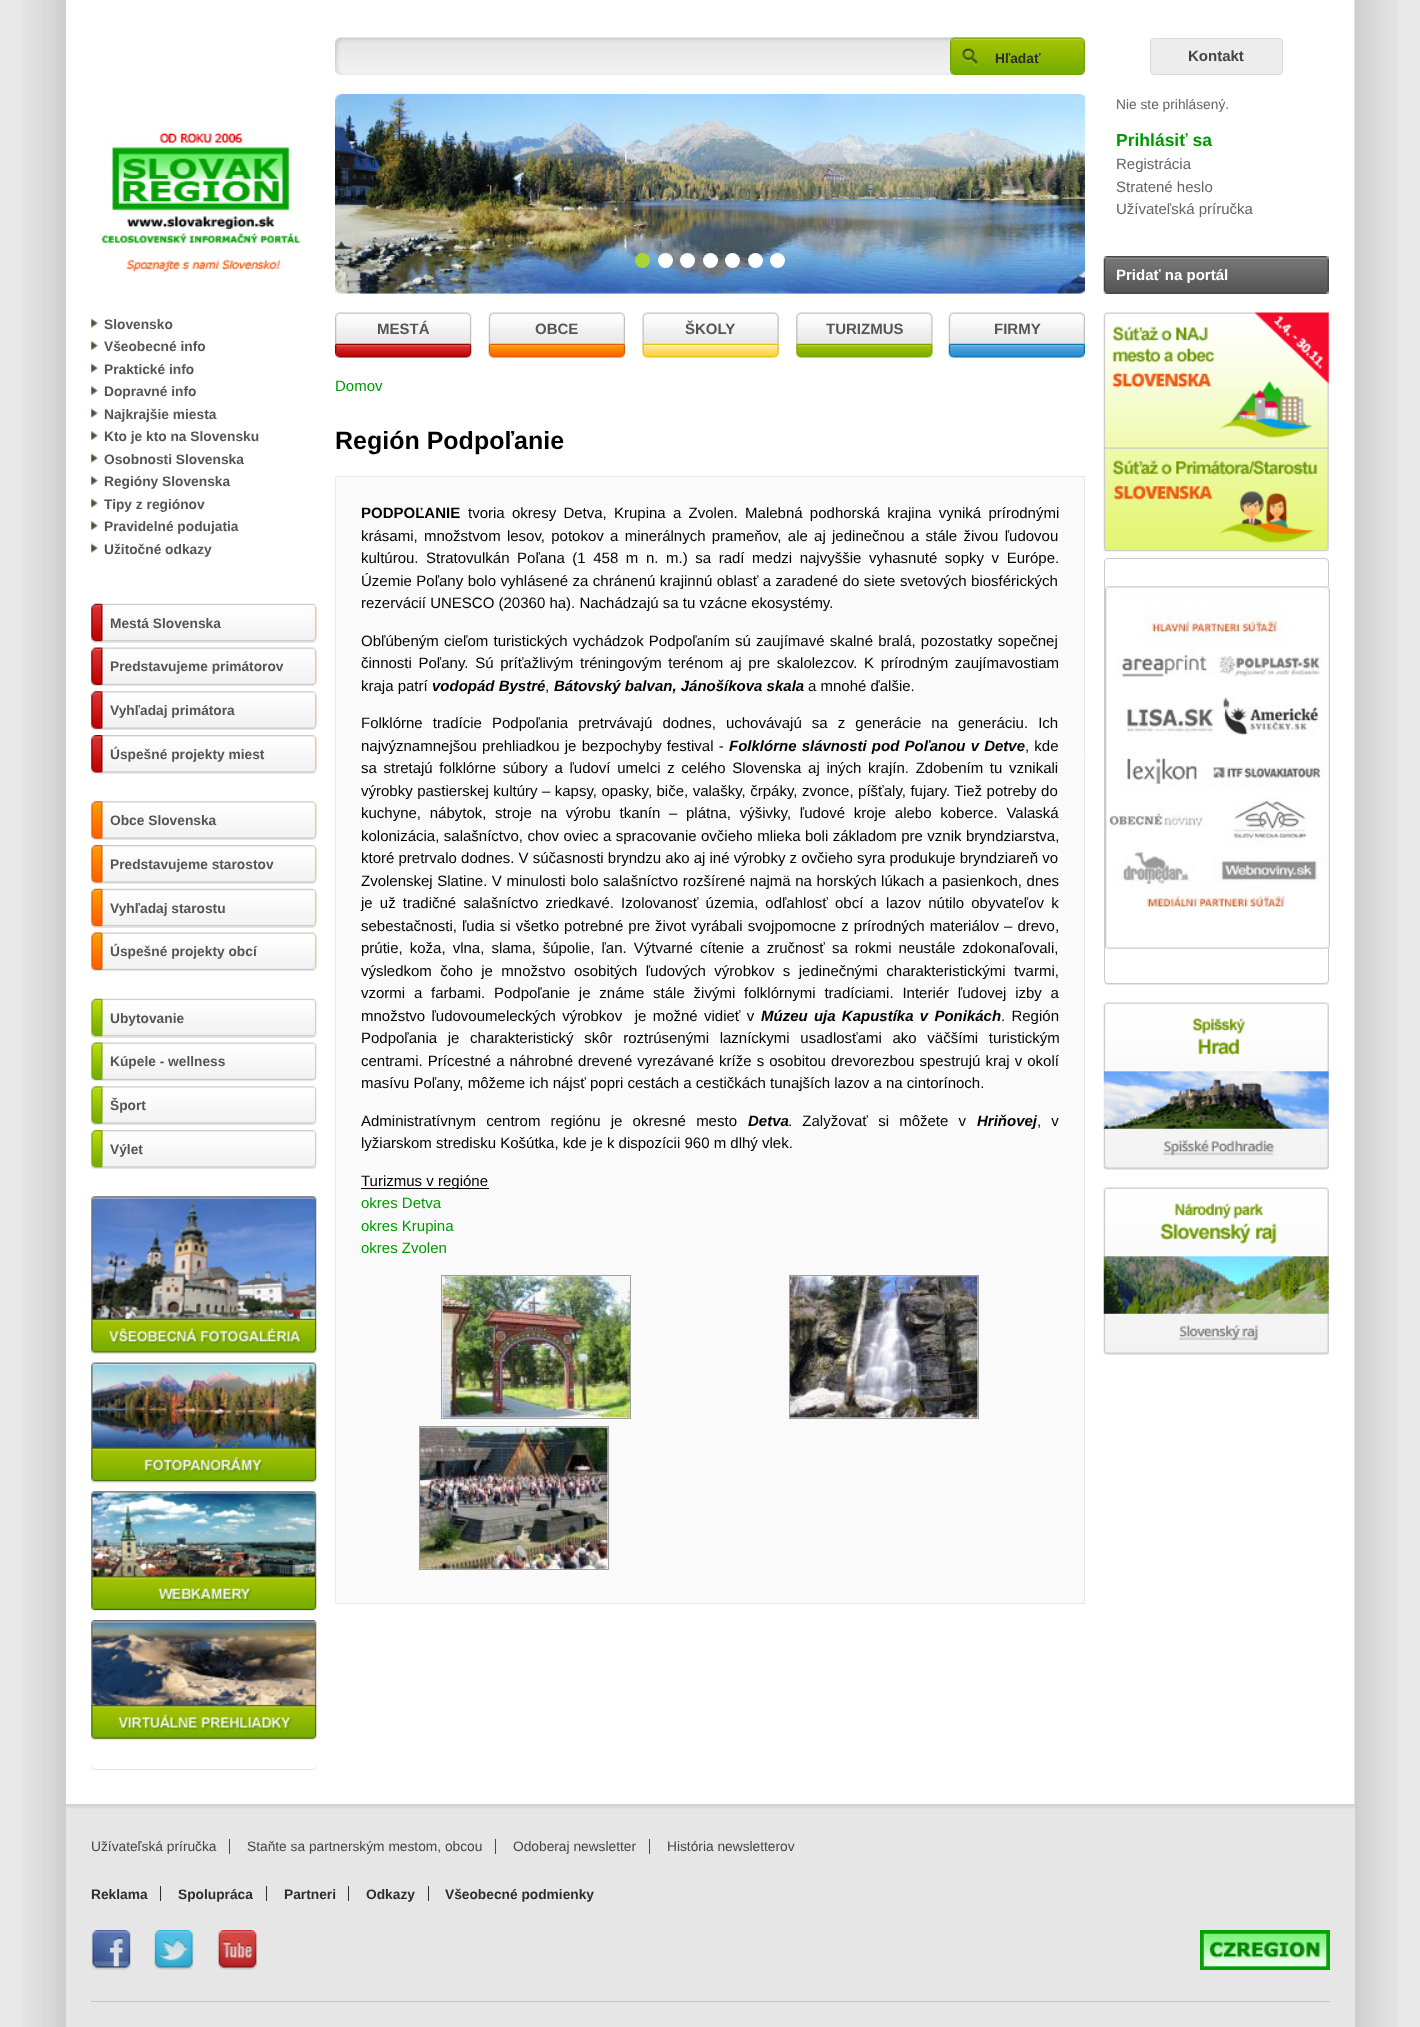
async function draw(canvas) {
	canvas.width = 1420;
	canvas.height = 2027;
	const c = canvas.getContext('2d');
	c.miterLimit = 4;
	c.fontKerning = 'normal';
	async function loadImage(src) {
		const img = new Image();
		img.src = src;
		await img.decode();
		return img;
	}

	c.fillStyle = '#e8e8e8';
	c.fillRect(0, 0, 1420, 2027);
	c.drawImage(await loadImage('img1.png'), 23, 0, 1375, 2027);
	c.fillStyle = '#fff';
	c.fillRect(66, 0, 1, 1804);
	c.drawImage(await loadImage('img2.png'), 335, 37, 750, 38);
	c.drawImage(await loadImage('img3.png'), 950, 37, 135, 38);
	c.font = 'bold 13.75px Liberation Sans';
	c.fillStyle = '#2d2d2d';
	c.fillText('Hľadať', 995, 63);
	c.drawImage(await loadImage('img4.png'), 335, 93, 750, 201);
	c.fillStyle = '#a9d537';
	c.beginPath();
	c.arc(642.5, 260.5, 7.5, 0, 2 * Math.PI);
	c.fill();
	c.fillStyle = '#fff';
	c.beginPath();
	c.arc(665.5, 260.5, 7.5, 0, 2 * Math.PI);
	c.fill();
	c.beginPath();
	c.arc(687.5, 260.5, 7.5, 0, 2 * Math.PI);
	c.fill();
	c.beginPath();
	c.arc(710.5, 260.5, 7.5, 0, 2 * Math.PI);
	c.fill();
	c.beginPath();
	c.arc(732.5, 260.5, 7.5, 0, 2 * Math.PI);
	c.fill();
	c.beginPath();
	c.arc(755.5, 260.5, 7.5, 0, 2 * Math.PI);
	c.fill();
	c.beginPath();
	c.arc(777.5, 260.5, 7.5, 0, 2 * Math.PI);
	c.fill();
	c.fillStyle = '#ededed';
	c.beginPath();
	c.roundRect(1150.5, 38.5, 132, 36, 3.5);
	c.fill();
	c.strokeStyle = '#dadada';
	c.stroke();
	c.font = 'bold 15px Liberation Sans';
	c.fillStyle = '#454545';
	c.fillText('Kontakt', 1188, 61);
	c.font = '13.75px Liberation Sans';
	c.fillStyle = '#646464';
	c.fillText('Nie ste prihlásený.', 1116, 109);
	c.font = 'bold 17.5px Liberation Sans';
	c.fillStyle = '#009a00';
	c.fillText('Prihlásiť sa', 1116, 146);
	c.font = '15px Liberation Sans';
	c.fillStyle = '#646464';
	for (const [text, x, y] of [
		['Registrácia', 1116, 169],
		['Stratené heslo', 1116, 192],
		['Užívateľská príručka', 1116, 214],
	]) {
		c.fillText(text, x, y);
	}
	c.fillStyle = '#666';
	c.fillRect(1104, 256, 225, 38);
	c.drawImage(await loadImage('img5.png'), 1103, 256, 226, 38);
	c.font = 'bold 15px Liberation Sans';
	c.fillStyle = '#fff';
	c.fillText('Pridať na portál', 1116, 280);
	c.drawImage(await loadImage('img6.png'), 99, 133, 202, 139);
	c.drawImage(await loadImage('img7.png'), 335, 312, 137, 46);
	c.fillStyle = '#555';
	c.fillText('MESTÁ', 377, 334);
	c.drawImage(await loadImage('img8.png'), 488, 312, 137, 46);
	c.fillText('OBCE', 535, 334);
	c.drawImage(await loadImage('img9.png'), 642, 312, 137, 46);
	c.fillText('ŠKOLY', 685, 334);
	c.drawImage(await loadImage('img10.png'), 796, 312, 137, 46);
	c.fillText('TURIZMUS', 826, 334);
	c.drawImage(await loadImage('img11.png'), 948, 312, 137, 46);
	c.fillText('FIRMY', 994, 334);
	c.drawImage(await loadImage('img12.png'), 91, 318, 7, 10);
	c.font = 'bold 13.75px Liberation Sans';
	c.fillText('Slovensko', 104, 329);
	c.drawImage(await loadImage('img13.png'), 91, 341, 7, 9);
	c.fillText('Všeobecné info', 104, 351);
	c.drawImage(await loadImage('img12.png'), 91, 363, 7, 10);
	c.fillText('Praktické info', 104, 374);
	c.drawImage(await loadImage('img13.png'), 91, 386, 7, 9);
	c.fillText('Dopravné info', 104, 396);
	c.drawImage(await loadImage('img12.png'), 91, 408, 7, 10);
	c.fillText('Najkrajšie miesta', 104, 419);
	c.drawImage(await loadImage('img13.png'), 91, 431, 7, 9);
	c.fillText('Kto je kto na Slovensku', 104, 441);
	c.drawImage(await loadImage('img12.png'), 91, 453, 7, 10);
	c.fillText('Osobnosti Slovenska', 104, 464);
	c.drawImage(await loadImage('img13.png'), 91, 476, 7, 9);
	c.fillText('Regióny Slovenska', 104, 486);
	c.drawImage(await loadImage('img12.png'), 91, 498, 7, 10);
	c.fillText('Tipy z regiónov', 104, 509);
	c.drawImage(await loadImage('img13.png'), 91, 521, 7, 9);
	c.fillText('Pravidelné podujatia', 104, 531);
	c.drawImage(await loadImage('img12.png'), 91, 543, 7, 10);
	c.fillText('Užitočné odkazy', 104, 554);
	c.fillStyle = '#0000001a';
	c.filter = 'blur(0.5px)';
	c.beginPath();
	c.roundRect(91, 605, 225, 38, 4);
	c.fill();
	c.filter = 'none';
	c.drawImage(await loadImage('img14.png'), 91, 603, 226, 39);
	c.fillStyle = '#555';
	c.fillText('Mestá Slovenska', 110, 628);
	c.fillStyle = '#0000001a';
	c.filter = 'blur(0.5px)';
	c.beginPath();
	c.roundRect(91, 649, 225, 37, 4);
	c.fill();
	c.filter = 'none';
	c.drawImage(await loadImage('img15.png'), 91, 647, 226, 38);
	c.fillStyle = '#555';
	c.fillText('Predstavujeme primátorov', 110, 671);
	c.fillStyle = '#0000001a';
	c.filter = 'blur(0.5px)';
	c.beginPath();
	c.roundRect(91, 693, 225, 37, 4);
	c.fill();
	c.filter = 'none';
	c.drawImage(await loadImage('img16.png'), 91, 691, 226, 38);
	c.fillStyle = '#555';
	c.fillText('Vyhľadaj primátora', 110, 715);
	c.fillStyle = '#0000001a';
	c.filter = 'blur(0.5px)';
	c.beginPath();
	c.roundRect(91, 736, 225, 38, 4);
	c.fill();
	c.filter = 'none';
	c.drawImage(await loadImage('img17.png'), 91, 735, 226, 38);
	c.fillStyle = '#555';
	c.fillText('Úspešné projekty miest', 110, 759);
	c.fillStyle = '#0000001a';
	c.filter = 'blur(0.5px)';
	c.beginPath();
	c.roundRect(91, 803, 225, 37, 4);
	c.fill();
	c.filter = 'none';
	c.drawImage(await loadImage('img18.png'), 91, 801, 226, 38);
	c.fillStyle = '#555';
	c.fillText('Obce Slovenska', 110, 825);
	c.fillStyle = '#0000001a';
	c.filter = 'blur(0.5px)';
	c.beginPath();
	c.roundRect(91, 846, 225, 38, 4);
	c.fill();
	c.filter = 'none';
	c.drawImage(await loadImage('img19.png'), 91, 845, 226, 38);
	c.fillStyle = '#555';
	c.fillText('Predstavujeme starostov', 110, 869);
	c.fillStyle = '#0000001a';
	c.filter = 'blur(0.5px)';
	c.beginPath();
	c.roundRect(91, 890, 225, 38, 4);
	c.fill();
	c.filter = 'none';
	c.drawImage(await loadImage('img20.png'), 91, 888, 226, 39);
	c.fillStyle = '#555';
	c.fillText('Vyhľadaj starostu', 110, 913);
	c.fillStyle = '#0000001a';
	c.filter = 'blur(0.5px)';
	c.beginPath();
	c.roundRect(91, 934, 225, 37, 4);
	c.fill();
	c.filter = 'none';
	c.drawImage(await loadImage('img21.png'), 91, 932, 226, 38);
	c.fillStyle = '#555';
	c.fillText('Úspešné projekty obcí', 110, 956);
	c.fillStyle = '#0000001a';
	c.filter = 'blur(0.5px)';
	c.beginPath();
	c.roundRect(91, 1000, 225, 38, 4);
	c.fill();
	c.filter = 'none';
	c.drawImage(await loadImage('img22.png'), 91, 998, 226, 39);
	c.fillStyle = '#555';
	c.fillText('Ubytovanie', 110, 1023);
	c.fillStyle = '#0000001a';
	c.filter = 'blur(0.5px)';
	c.beginPath();
	c.roundRect(91, 1044, 225, 37, 4);
	c.fill();
	c.filter = 'none';
	c.drawImage(await loadImage('img23.png'), 91, 1042, 226, 38);
	c.fillStyle = '#555';
	c.fillText('Kúpele - wellness', 110, 1066);
	c.fillStyle = '#0000001a';
	c.filter = 'blur(0.5px)';
	c.beginPath();
	c.roundRect(91, 1088, 225, 37, 4);
	c.fill();
	c.filter = 'none';
	c.drawImage(await loadImage('img24.png'), 91, 1086, 226, 38);
	c.fillStyle = '#555';
	c.fillText('Šport', 110, 1110);
	c.fillStyle = '#0000001a';
	c.filter = 'blur(0.5px)';
	c.beginPath();
	c.roundRect(91, 1131, 225, 38, 4);
	c.fill();
	c.filter = 'none';
	c.drawImage(await loadImage('img25.png'), 91, 1130, 226, 38);
	c.fillStyle = '#555';
	c.fillText('Výlet', 110, 1154);
	c.fillStyle = '#0000001a';
	c.filter = 'blur(0.5px)';
	c.beginPath();
	c.roundRect(91, 1198, 225, 156, 4);
	c.fill();
	c.filter = 'none';
	c.drawImage(await loadImage('img26.png'), 91, 1196, 226, 157);
	c.filter = 'blur(0.5px)';
	c.beginPath();
	c.roundRect(91, 1364, 225, 119, 4);
	c.fill();
	c.filter = 'none';
	c.drawImage(await loadImage('img27.png'), 91, 1362, 226, 120);
	c.filter = 'blur(0.5px)';
	c.beginPath();
	c.roundRect(91, 1493, 225, 118, 4);
	c.fill();
	c.filter = 'none';
	c.drawImage(await loadImage('img28.png'), 91, 1491, 226, 119);
	c.filter = 'blur(0.5px)';
	c.beginPath();
	c.roundRect(91, 1621, 225, 119, 4);
	c.fill();
	c.filter = 'none';
	c.drawImage(await loadImage('img29.png'), 91, 1620, 226, 119);
	c.save();
	c.beginPath();
	c.moveTo(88, 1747);
	c.lineTo(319, 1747);
	c.lineTo(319, 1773);
	c.lineTo(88, 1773);
	c.closePath();
	c.moveTo(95, 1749);
	c.lineTo(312, 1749);
	c.bezierCurveTo(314, 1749, 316, 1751, 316, 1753);
	c.lineTo(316, 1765);
	c.bezierCurveTo(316, 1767, 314, 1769, 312, 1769);
	c.lineTo(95, 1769);
	c.bezierCurveTo(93, 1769, 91, 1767, 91, 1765);
	c.lineTo(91, 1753);
	c.bezierCurveTo(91, 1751, 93, 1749, 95, 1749);
	c.closePath();
	c.clip('evenodd');
	c.filter = 'blur(0.5px)';
	c.beginPath();
	c.roundRect(91, 1750, 225, 20, 4);
	c.fill();
	c.filter = 'none';
	c.restore();
	c.font = '15px Liberation Sans';
	c.fillStyle = '#009a00';
	c.fillText('Domov', 335, 391);
	c.font = 'bold 25px Liberation Sans';
	c.fillStyle = '#000';
	c.fillText('Región Podpoľanie', 335, 449);
	c.fillStyle = '#fafafa';
	c.beginPath();
	c.rect(335.5, 476.5, 749, 1127);
	c.fill();
	c.strokeStyle = '#e9e9e9';
	c.stroke();
	c.font = 'bold 15px Liberation Sans';
	c.fillStyle = '#000';
	c.fillText('PODPOĽANIE', 361, 518);
	c.wordSpacing = '3.1px';
	c.font = '15px Liberation Sans';
	c.fillText('tvoria okresy Detva, Krupina a Zvolen. Malebná podhorská krajina vyniká prírodnými', 468, 518);
	c.wordSpacing = '2.1px';
	c.fillText('krásami, množstvom lesov, potokov a minerálnych prameňov, ale aj jedinečnou a stále živou ľudovou', 361, 541);
	c.wordSpacing = '3.4px';
	c.fillText('kultúrou. Stratovulkán Poľana (1 458 m n. m.) sa radí medzi najvyššie vyhasnuté sopky v Európe.', 361, 563);
	c.wordSpacing = '0.3px';
	c.fillText('Územie Poľany bolo vyhlásené za chránenú krajinnú oblasť a zaradené do siete svetových biosférických', 361, 586);
	c.wordSpacing = '0px';
	c.fillText('rezervácií UNESCO (20360 ha). Nachádzajú sa tu vzácne ekosystémy.', 361, 608);
	c.wordSpacing = '1px';
	c.fillText('Obľúbeným cieľom turistických vychádzok Podpoľaním sú zaujímavé skalné bralá, pozostatky sopečnej', 361, 646);
	c.wordSpacing = '2.5px';
	c.fillText('činnosti Poľany. Sú príťažlivým tréningovým terénom aj pre skalolezcov. K prírodným zaujímavostiam', 361, 668);
	c.wordSpacing = '0px';
	c.fillText('kraja patrí', 361, 691);
	c.font = 'italic bold 15px Liberation Sans';
	c.fillText('vodopád Bystré', 432, 691);
	c.font = '15px Liberation Sans';
	c.fillText(',', 545, 691);
	c.font = 'italic bold 15px Liberation Sans';
	c.fillText('Bátovský balvan, Jánošíkova skala', 554, 691);
	c.font = '15px Liberation Sans';
	c.fillText('a mnohé ďalšie.', 808, 691);
	c.wordSpacing = '5.9px';
	c.fillText('Folklórne tradície Podpoľania pretrvávajú dodnes, uchovávajú sa z generácie na generáciu. Ich', 361, 728);
	c.wordSpacing = '1px';
	c.fillText('najvýznamnejšou prehliadkou je bezpochyby festival -', 361, 751);
	c.font = 'italic bold 15px Liberation Sans';
	c.fillText('Folklórne slávnosti pod Poľanou v Detve', 729, 751);
	c.font = '15px Liberation Sans';
	c.fillText(', kde', 1025, 751);
	c.wordSpacing = '2.5px';
	c.fillText('sa stretajú folklórne súbory a ľudoví umelci z celého Slovenska aj iných krajín. Zdobením tu vznikali', 361, 773);
	c.wordSpacing = '0.3px';
	c.fillText('výrobky pastierskej kultúry – kapsy, opasky, biče, valašky, črpáky, zvonce, píšťaly, fujary. Tiež potreby do', 361, 796);
	c.wordSpacing = '4.5px';
	c.fillText('kuchyne, nábytok, stroje na výrobu tkanín – plátna, výšivky, ľudové kroje alebo koberce. Valaská', 361, 818);
	c.wordSpacing = '0.25px';
	c.fillText('kolonizácia, salašníctvo, chov oviec a spracovanie ovčieho mlieka boli základom pre vznik bryndziarstva,', 361, 841);
	c.wordSpacing = '0px';
	c.fillText('ktoré pretrvalo dodnes. V súčasnosti bryndzu ako aj iné výrobky z ovčieho syra produkuje bryndziareň vo', 361, 863);
	c.wordSpacing = '0.4px';
	c.fillText('Zvolenskej Slatine. V minulosti bolo salašníctvo rozšírené najmä na horských lúkach a pasienkoch, dnes', 361, 886);
	c.wordSpacing = '3px';
	c.fillText('je už tradičné salašníctvo zriedkavé. Izolovanosť územia, odľahlosť obcí a lazov nútilo obyvateľov k', 361, 908);
	c.wordSpacing = '0.9px';
	c.fillText('sebestačnosti, ľudia si všetko potrebné pre život vyrábali svojpomocne z prírodných materiálov – drevo,', 361, 931);
	c.wordSpacing = '2.9px';
	c.fillText('prútie, koža, vlna, slama, šúpolie, ľan. Výtvarné cítenie a zručnosť sa rokmi neustále zdokonaľovali,', 361, 953);
	c.wordSpacing = '4.25px';
	c.fillText('výsledkom čoho je množstvo osobitých ľudových výrobkov s jedinečnými charakteristickými tvarmi,', 361, 976);
	c.wordSpacing = '4.6px';
	c.fillText('vzormi a farbami. Podpoľanie je známe stále živými folklórnymi tradíciami. Interiér ľudovej izby a', 361, 998);
	c.wordSpacing = '2.1px';
	c.fillText('množstvo ľudovoumeleckých výrobkov  je možné vidieť v', 361, 1021);
	c.font = 'italic bold 15px Liberation Sans';
	c.fillText('Múzeu uja Kapustíka v Ponikách', 761, 1021);
	c.font = '15px Liberation Sans';
	c.fillText('. Región', 1001, 1021);
	c.wordSpacing = '6.5px';
	c.fillText('Podpoľania je charakteristický skôr roztrúsenými lazníckymi usadlosťami ako väčšími turistickým', 361, 1043);
	c.wordSpacing = '0.9px';
	c.fillText('centrami. Prícestné a náhrobné drevené vyrezávané kríže s osobitou drevorezbou spestrujú kraj v okolí', 361, 1066);
	c.wordSpacing = '0px';
	c.fillText('masívu Poľany, môžeme ich nájsť popri cestách a cestičkách tunajších lazov a na cintorínoch.', 361, 1088);
	c.wordSpacing = '6px';
	c.fillText('Administratívnym centrom regiónu je okresné mesto', 361, 1126);
	c.wordSpacing = '0px';
	c.font = 'italic bold 15px Liberation Sans';
	c.fillText('Detva', 748, 1126);
	c.wordSpacing = '6px';
	c.font = '15px Liberation Sans';
	c.fillText('. Zalyžovať si môžete v', 788, 1126);
	c.wordSpacing = '0px';
	c.font = 'italic bold 15px Liberation Sans';
	c.fillText('Hriňovej', 977, 1126);
	c.wordSpacing = '6px';
	c.font = '15px Liberation Sans';
	c.fillText(', v', 1037, 1126);
	c.wordSpacing = '0px';
	c.fillText('lyžiarskom stredisku Košútka, kde je k dispozícii 960 m dlhý vlek.', 361, 1148);
	c.fillRect(361, 1188, 128, 1);
	c.fillText('Turizmus v regióne', 361, 1186);
	c.fillStyle = '#009a00';
	for (const [text, x, y] of [
		['okres Detva', 361, 1208],
		['okres Krupina', 361, 1231],
		['okres Zvolen', 361, 1253],
	]) {
		c.fillText(text, x, y);
	}
	c.strokeStyle = '#9f9f9f';
	c.strokeRect(441.5, 1275.5, 189, 143);
	c.strokeRect(789.5, 1275.5, 189, 143);
	c.drawImage(await loadImage('img30.png'), 442, 1276, 188, 142);
	c.drawImage(await loadImage('img31.png'), 790, 1276, 188, 142);
	c.strokeRect(419.5, 1426.5, 189, 143);
	c.drawImage(await loadImage('img32.png'), 420, 1427, 188, 142);
	c.drawImage(await loadImage('img33.png'), 1103, 312, 226, 240);
	c.save();
	c.beginPath();
	c.moveTo(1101, 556);
	c.lineTo(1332, 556);
	c.lineTo(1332, 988);
	c.lineTo(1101, 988);
	c.closePath();
	c.moveTo(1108, 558);
	c.lineTo(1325, 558);
	c.bezierCurveTo(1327, 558, 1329, 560, 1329, 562);
	c.lineTo(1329, 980);
	c.bezierCurveTo(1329, 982, 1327, 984, 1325, 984);
	c.lineTo(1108, 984);
	c.bezierCurveTo(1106, 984, 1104, 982, 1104, 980);
	c.lineTo(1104, 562);
	c.bezierCurveTo(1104, 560, 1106, 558, 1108, 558);
	c.closePath();
	c.clip('evenodd');
	c.fillStyle = '#0000001a';
	c.filter = 'blur(0.5px)';
	c.beginPath();
	c.roundRect(1104, 559, 225, 426, 4);
	c.fill();
	c.filter = 'none';
	c.restore();
	c.beginPath();
	c.roundRect(1104.5, 558.5, 224, 425, 3.5);
	c.strokeStyle = '#cacaca';
	c.stroke();
	c.drawImage(await loadImage('img34.png'), 1105, 586, 225, 363);
	c.fillStyle = '#0000001a';
	c.filter = 'blur(0.5px)';
	c.beginPath();
	c.roundRect(1104, 1004, 225, 166, 4);
	c.fill();
	c.filter = 'none';
	c.drawImage(await loadImage('img35.png'), 1103, 1002, 226, 167);
	c.filter = 'blur(0.5px)';
	c.beginPath();
	c.roundRect(1104, 1189, 225, 166, 4);
	c.fill();
	c.filter = 'none';
	c.drawImage(await loadImage('img36.png'), 1103, 1187, 226, 167);
	c.fillStyle = '#e6e6e6';
	c.fillRect(66, 1804, 1289, 223);
	c.drawImage(await loadImage('img37.png'), 66, 1804, 1289, 5);
	c.font = '13.75px Liberation Sans';
	c.fillStyle = '#454545';
	c.fillText('Užívateľská príručka', 91, 1851);
	c.fillStyle = '#474747';
	c.fillRect(229, 1839, 1, 15);
	c.fillStyle = '#454545';
	c.fillText('Staňte sa partnerským mestom, obcou', 247, 1851);
	c.fillStyle = '#474747';
	c.fillRect(495, 1839, 1, 15);
	c.fillStyle = '#454545';
	c.fillText('Odoberaj newsletter', 513, 1851);
	c.fillStyle = '#474747';
	c.fillRect(649, 1839, 1, 15);
	c.fillStyle = '#454545';
	c.fillText('História newsletterov', 667, 1851);
	c.font = 'bold 13.75px Liberation Sans';
	c.fillStyle = '#2d2d2d';
	c.fillText('Reklama', 91, 1899);
	c.fillStyle = '#2f2f2f';
	c.fillRect(160, 1886, 1, 15);
	c.fillStyle = '#2d2d2d';
	c.fillText('Spolupráca', 178, 1899);
	c.fillStyle = '#2f2f2f';
	c.fillRect(266, 1886, 1, 15);
	c.fillStyle = '#2d2d2d';
	c.fillText('Partneri', 284, 1899);
	c.fillStyle = '#2f2f2f';
	c.fillRect(348, 1886, 1, 15);
	c.fillStyle = '#2d2d2d';
	c.fillText('Odkazy', 366, 1899);
	c.fillStyle = '#2f2f2f';
	c.fillRect(428, 1886, 1, 15);
	c.fillStyle = '#2d2d2d';
	c.fillText('Všeobecné podmienky', 445, 1899);
	c.drawImage(await loadImage('img38.png'), 91, 1930, 40, 40);
	c.drawImage(await loadImage('img39.png'), 154, 1930, 40, 40);
	c.drawImage(await loadImage('img40.png'), 217, 1930, 41, 40);
	c.drawImage(await loadImage('img41.png'), 1200, 1930, 130, 40);
	c.fillStyle = '#c5c5c5';
	c.fillRect(91, 2001, 1239, 1);
}

draw(document.querySelector('canvas'));
